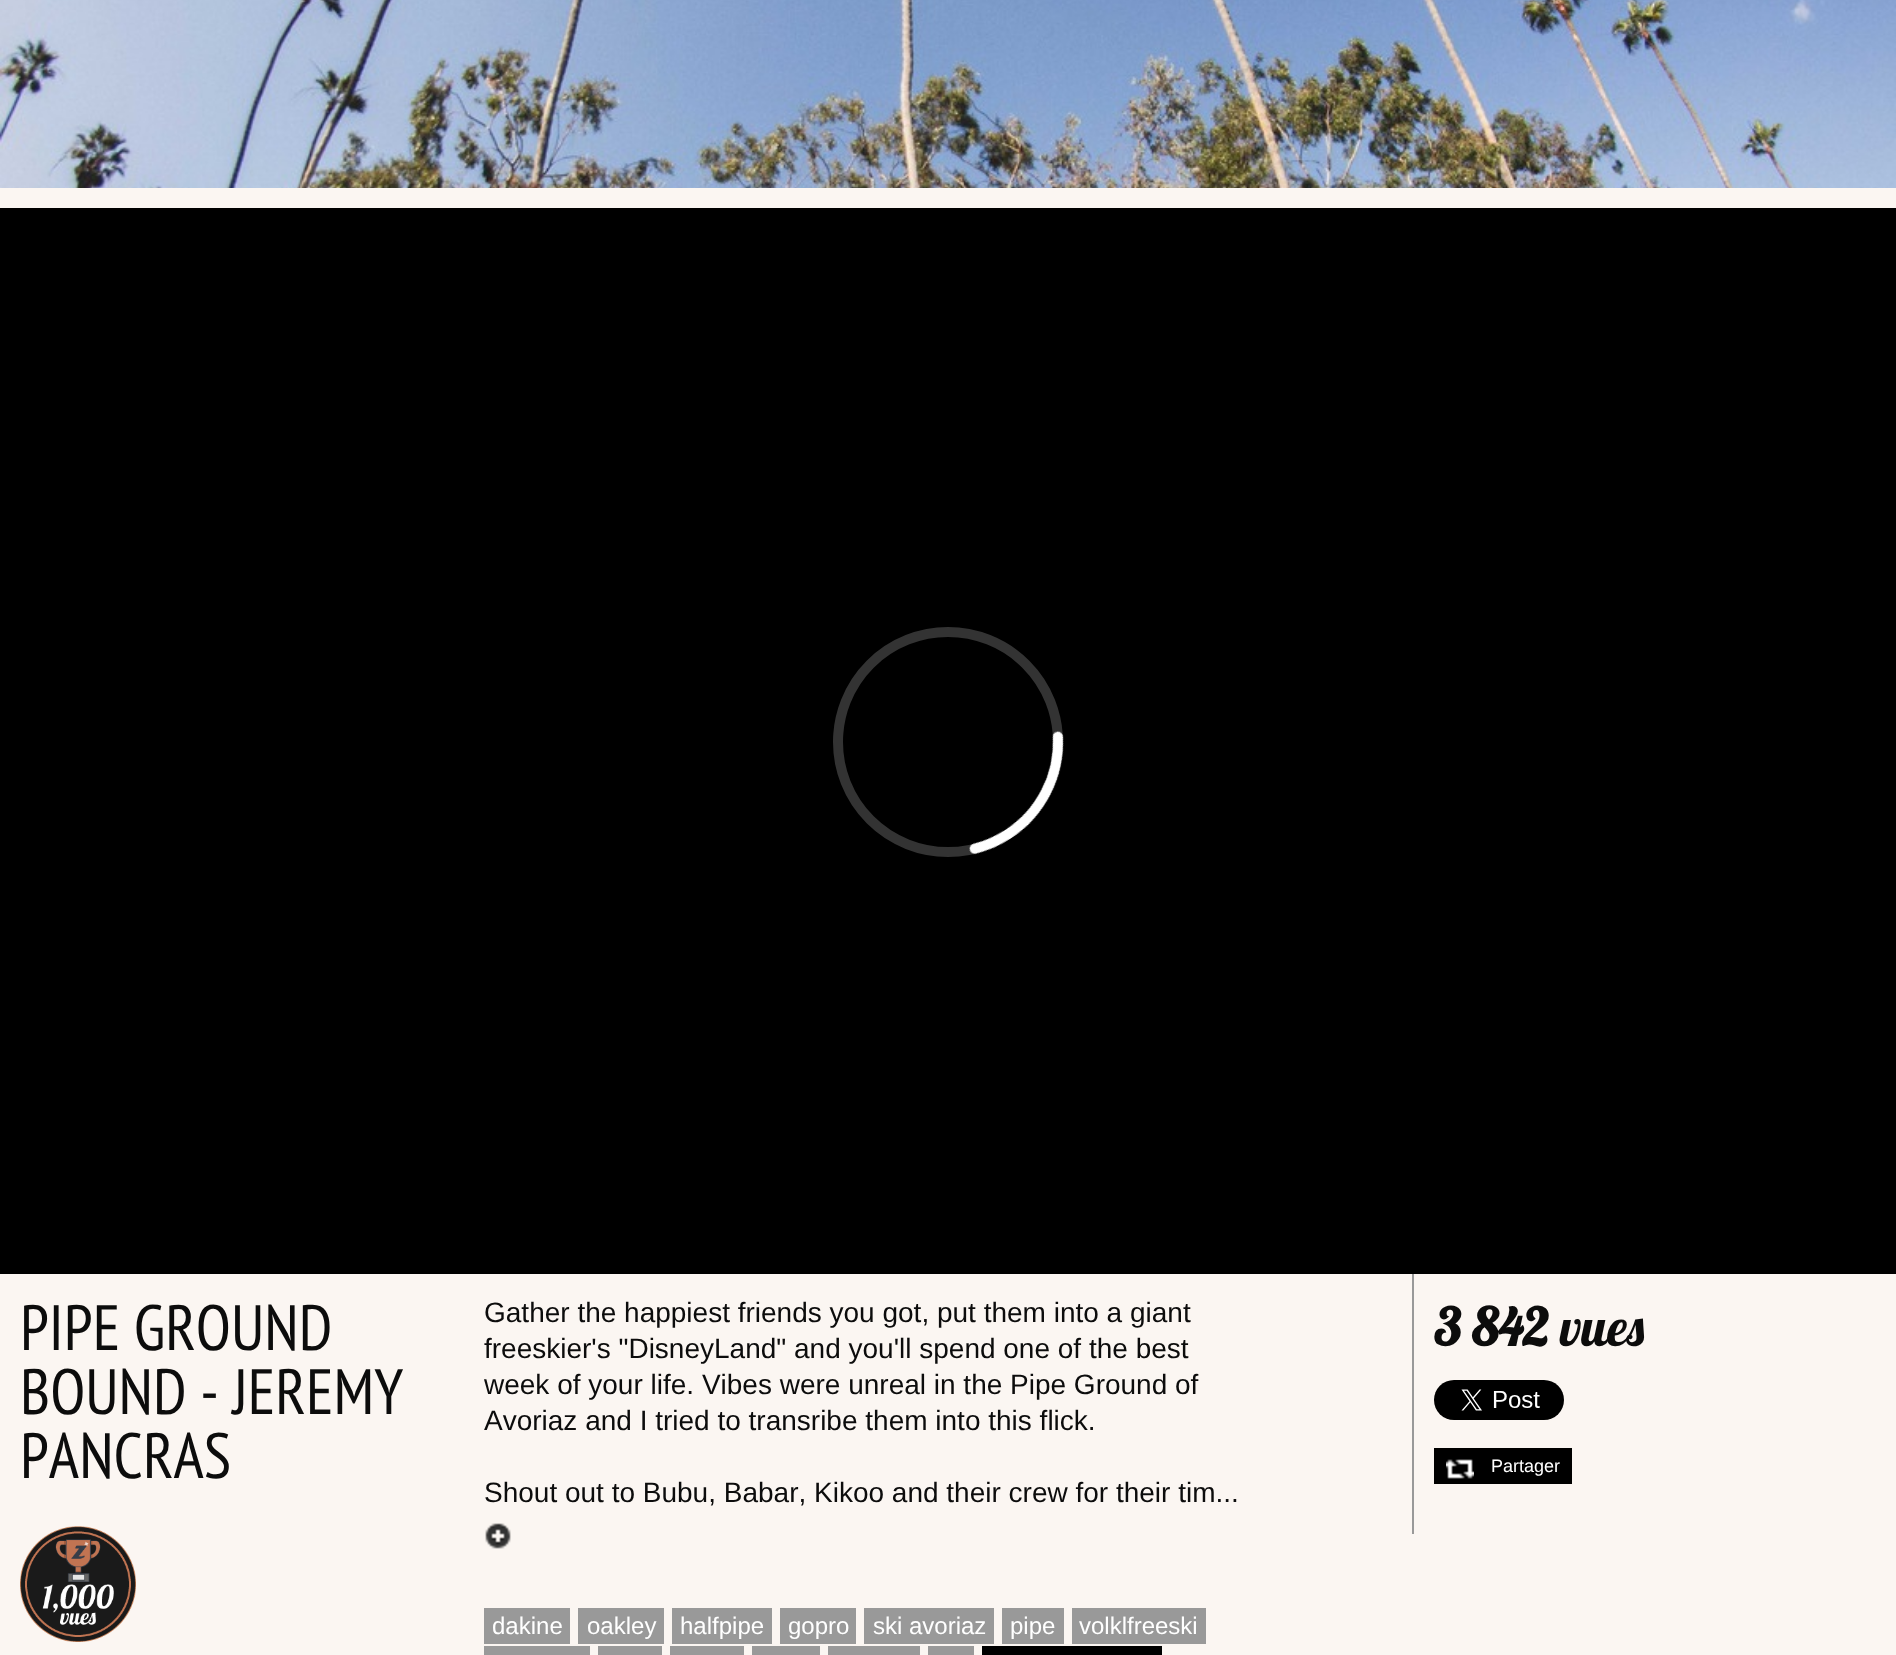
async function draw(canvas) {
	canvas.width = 1896;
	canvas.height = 1655;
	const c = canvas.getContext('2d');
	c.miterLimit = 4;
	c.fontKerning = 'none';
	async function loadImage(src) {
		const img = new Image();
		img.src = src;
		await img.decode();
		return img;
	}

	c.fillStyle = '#fff';
	c.fillRect(0, 0, 1896, 1655);
	c.drawImage(await loadImage('img1.png'), 0, 0, 1896, 188);
	c.fillStyle = '#fbf6f2';
	c.fillRect(0, 188, 1896, 1467);
	c.drawImage(await loadImage('img2.png'), 0, 208, 1896, 1066);
	c.font = '64px PT Sans Narrow';
	c.fillStyle = '#0c0c0c';
	for (const [text, x, y] of [
		['PIPE GROUND', 20, 1350],
		['BOUND - JEREMY', 20, 1414],
		['PANCRAS', 20, 1478],
	]) {
		c.fillText(text, x, y);
	}
	c.drawImage(await loadImage('img3.png'), 20, 1526, 116, 116);
	c.font = '28px Liberation Sans';
	for (const [text, x, y] of [
		['Gather the happiest friends you got, put them into a giant', 484, 1322],
		['freeskier\'s "DisneyLand" and you\'ll spend one of the best', 484, 1358],
		['week of your life. Vibes were unreal in the Pipe Ground of', 484, 1394],
		['Avoriaz and I tried to transribe them into this flick.', 484, 1430],
		['Shout out to Bubu, Babar, Kikoo and their crew for their tim...', 484, 1502],
	]) {
		c.fillText(text, x, y);
	}
	c.drawImage(await loadImage('img4.png'), 485, 1523, 26, 26);
	c.fillStyle = '#999';
	c.fillRect(484, 1608, 86, 36);
	c.font = '24px Liberation Sans';
	c.fillStyle = '#fff';
	c.fillText('dakine', 492, 1634);
	c.fillStyle = '#999';
	c.fillRect(578, 1608, 86, 36);
	c.fillStyle = '#fff';
	c.fillText('oakley', 587, 1634);
	c.fillStyle = '#999';
	c.fillRect(672, 1608, 100, 36);
	c.fillStyle = '#fff';
	c.fillText('halfpipe', 680, 1634);
	c.fillStyle = '#999';
	c.fillRect(780, 1608, 76, 36);
	c.fillStyle = '#fff';
	c.fillText('gopro', 788, 1634);
	c.fillStyle = '#999';
	c.fillRect(864, 1608, 130, 36);
	c.fillStyle = '#fff';
	c.fillText('ski avoriaz', 873, 1634);
	c.fillStyle = '#999';
	c.fillRect(1002, 1608, 62, 36);
	c.fillStyle = '#fff';
	c.fillText('pipe', 1010, 1634);
	c.fillStyle = '#999';
	c.fillRect(1072, 1608, 134, 36);
	c.fillStyle = '#fff';
	c.fillText('volklfreeski', 1079, 1634);
	for (const [x, y, w, h, color] of [
		[484, 1646, 106, 9, '#999'],
		[598, 1646, 64, 9, '#999'],
		[670, 1646, 74, 9, '#999'],
		[752, 1646, 68, 9, '#999'],
		[828, 1646, 92, 9, '#999'],
		[928, 1646, 46, 9, '#999'],
		[982, 1646, 180, 9, '#000'],
		[1412, 1274, 2, 260, '#999'],
	]) {
		c.fillStyle = color;
		c.fillRect(x, y, w, h);
	}
	c.font = 'bold 52px Lobster';
	c.fillStyle = '#0c0c0c';
	c.fillText('3 842', 1434, 1346);
	c.font = '52px Lobster';
	c.fillText('vues', 1560, 1346);
	c.drawImage(await loadImage('img5.png'), 1434, 1380, 130, 40);
	c.fillStyle = '#000';
	c.fillRect(1434, 1448, 138, 36);
	c.drawImage(await loadImage('img6.png'), 1446, 1459, 28, 20);
	c.font = '18px Liberation Sans';
	c.fillStyle = '#fff';
	c.fillText('Partager', 1491, 1472);
}

draw(document.querySelector('canvas'));
